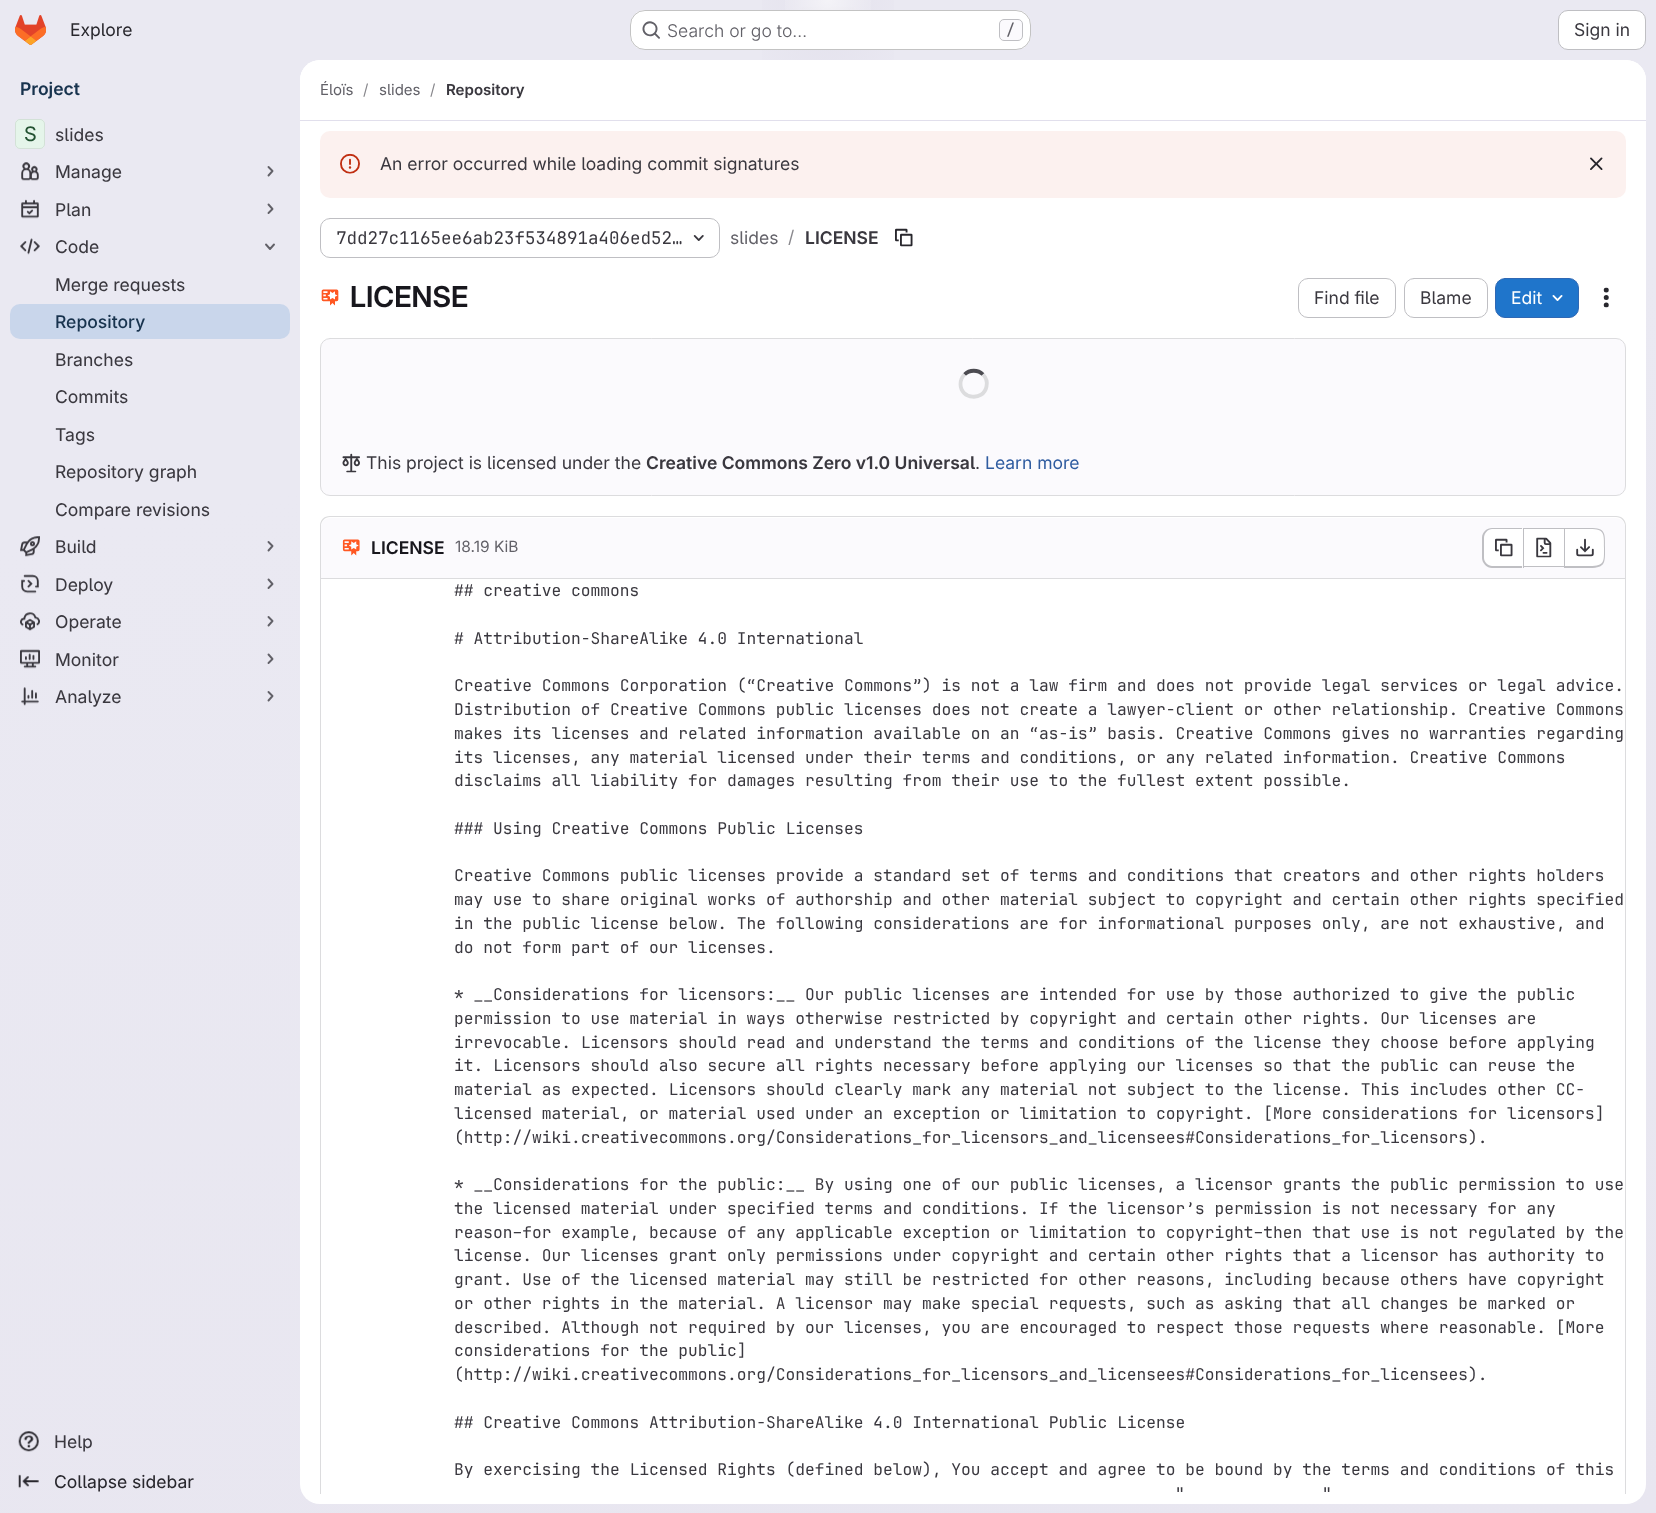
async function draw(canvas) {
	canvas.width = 1656;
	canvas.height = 1513;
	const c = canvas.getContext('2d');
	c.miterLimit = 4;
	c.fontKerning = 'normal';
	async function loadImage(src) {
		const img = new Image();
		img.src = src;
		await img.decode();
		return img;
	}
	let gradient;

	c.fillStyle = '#fff';
	c.fillRect(0, 0, 1656, 1513);
	gradient = c.createLinearGradient(983, 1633, 674, -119);
	gradient.addColorStop(0, '#e8e6f0');
	gradient.addColorStop(0.7, '#eae9f2');
	c.fillStyle = gradient;
	c.fillRect(0, 0, 1656, 1513);
	gradient = c.createRadialGradient(828, 0, 0, 828, 0, 828);
	gradient.addColorStop(0, '#e4e2ed');
	gradient.addColorStop(0.11, '#e4e2ed00');
	c.fillStyle = gradient;
	c.beginPath();
	c.rect(762, 0, 132, 60);
	c.save();
	c.clip();
	c.scale(1, 1514 / 828);
	c.fillRect(0, 0, 1656, 828);
	c.restore();
	gradient = c.createRadialGradient(828, 0, 0, 828, 0, 828);
	gradient.addColorStop(0, '#e4e2ec');
	gradient.addColorStop(0.08, '#e4e2ec00');
	c.fillStyle = gradient;
	c.beginPath();
	c.rect(802, 7, 52, 43);
	c.save();
	c.clip();
	c.scale(1, 1514 / 828);
	c.fillRect(0, 0, 1656, 828);
	c.restore();
	gradient = c.createRadialGradient(828, 0, 0, 828, 0, 1725);
	gradient.addColorStop(0, '#ffffff99');
	gradient.addColorStop(0.03, '#ffffff00');
	c.fillStyle = gradient;
	c.fillRect(785, 0, 86, 10);
	c.drawImage(await loadImage('img1.png'), 15, 15, 31, 30);
	c.font = '17.5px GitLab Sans';
	c.fillStyle = '#28272d';
	c.fillText('Explore', 70, 36);
	c.fillStyle = '#fff';
	c.beginPath();
	c.roundRect(630, 10, 401, 40, 15);
	c.fill();
	c.beginPath();
	c.roundRect(630.5, 10.5, 400, 39, 14.5);
	c.strokeStyle = '#0505063d';
	c.stroke();
	c.drawImage(await loadImage('img2.png'), 642, 21, 18, 18);
	c.font = '300 17.5px GitLab Sans';
	c.fillStyle = '#626168';
	c.fillText('Search or go to…', 667, 37);
	c.fillStyle = '#fbfafd';
	c.beginPath();
	c.roundRect(999.5, 19.5, 23, 21, 4.5);
	c.fill();
	c.strokeStyle = '#bfbfc3';
	c.stroke();
	c.font = '500 15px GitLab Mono';
	c.fillStyle = '#626168';
	c.fillText('/', 1006, 35);
	c.fillStyle = '#fff';
	c.beginPath();
	c.roundRect(1558.5, 10.5, 87, 39, 9.5);
	c.fill();
	c.stroke();
	c.font = '17.5px GitLab Sans';
	c.fillStyle = '#3a383f';
	c.fillText('Sign in', 1574, 36);
	c.font = '600 17.5px GitLab Sans';
	c.fillStyle = '#18334e';
	c.fillText('Project', 20, 95);
	c.fillStyle = '#fff';
	c.beginPath();
	c.roundRect(15, 119, 30, 30, 5);
	c.fill();
	c.fillStyle = '#91d4a83d';
	c.beginPath();
	c.roundRect(15, 119, 30, 30, 5);
	c.fill();
	c.beginPath();
	c.roundRect(15.5, 119.5, 29, 29, 4.5);
	c.strokeStyle = '#05050614';
	c.stroke();
	c.font = '20px "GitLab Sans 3"';
	c.fillStyle = '#225131';
	c.fillText('S', 24, 141);
	c.font = '17.5px "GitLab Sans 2"';
	c.fillStyle = '#3a383f';
	c.fillText('slides', 55, 141);
	c.drawImage(await loadImage('img3.png'), 21, 162, 18, 19);
	c.fillText('Manage', 55, 178);
	c.beginPath();
	c.moveTo(268.5, 167);
	c.lineTo(272.5, 171);
	c.lineTo(268.5, 175.5);
	c.strokeStyle = '#626168';
	c.lineWidth = 1.9;
	c.lineCap = 'round';
	c.lineJoin = 'round';
	c.stroke();
	c.drawImage(await loadImage('img4.png'), 21, 199, 18, 20);
	c.fillText('Plan', 55, 216);
	c.beginPath();
	c.moveTo(268.5, 204.5);
	c.lineTo(272.5, 209);
	c.lineTo(268.5, 213);
	c.stroke();
	c.drawImage(await loadImage('img5.png'), 20, 238, 20, 17);
	c.fillText('Code', 55, 253);
	c.beginPath();
	c.moveTo(274, 244.5);
	c.lineTo(270, 249);
	c.lineTo(266, 244.5);
	c.stroke();
	c.fillText('Merge requests', 55, 291);
	c.fillStyle = '#c9d6eb';
	c.beginPath();
	c.roundRect(10, 304, 280, 35, 10);
	c.fill();
	c.font = '500 17.5px GitLab Sans';
	c.fillStyle = '#18334e';
	c.fillText('Repository', 55, 328);
	c.font = '17.5px "GitLab Sans 2"';
	c.fillStyle = '#3a383f';
	for (const [text, x, y] of [
		['Branches', 55, 366],
		['Commits', 55, 403],
		['Tags', 55, 441],
		['Repository graph', 55, 478],
		['Compare revisions', 55, 516],
	]) {
		c.fillText(text, x, y);
	}
	c.drawImage(await loadImage('img6.png'), 20, 536, 20, 21);
	c.fillText('Build', 55, 553);
	c.beginPath();
	c.moveTo(268.5, 542);
	c.lineTo(272.5, 546);
	c.lineTo(268.5, 550.5);
	c.stroke();
	c.drawImage(await loadImage('img7.png'), 21, 574, 18, 20);
	c.fillText('Deploy', 55, 591);
	c.beginPath();
	c.moveTo(268.5, 579.5);
	c.lineTo(272.5, 584);
	c.lineTo(268.5, 588);
	c.stroke();
	c.drawImage(await loadImage('img8.png'), 20, 612, 20, 19);
	c.fillText('Operate', 55, 628);
	c.beginPath();
	c.moveTo(268.5, 617);
	c.lineTo(272.5, 621);
	c.lineTo(268.5, 625.5);
	c.stroke();
	c.drawImage(await loadImage('img9.png'), 20, 649, 20, 20);
	c.fillText('Monitor', 55, 666);
	c.beginPath();
	c.moveTo(268.5, 654.5);
	c.lineTo(272.5, 659);
	c.lineTo(268.5, 663);
	c.stroke();
	c.drawImage(await loadImage('img10.png'), 21, 687, 18, 19);
	c.fillText('Analyze', 55, 703);
	c.beginPath();
	c.moveTo(268.5, 692);
	c.lineTo(272.5, 696);
	c.lineTo(268.5, 700.5);
	c.stroke();
	c.drawImage(await loadImage('img11.png'), 18, 1431, 21, 21);
	c.fillText('Help', 54, 1448);
	c.drawImage(await loadImage('img12.png'), 18, 1474, 21, 15);
	c.fillStyle = '#28272d';
	c.fillText('Collapse sidebar', 54, 1488);
	c.fillStyle = '#fff';
	c.beginPath();
	c.roundRect(300, 60, 1346, 1444, 20);
	c.fill();
	c.beginPath();
	c.roundRect(300, 60, 1346, 61, [20, 20, 0, 0]);
	c.fill();
	c.fillStyle = '#e1dfec';
	c.fillRect(300, 120, 1346, 1);
	c.font = '15px GitLab Sans';
	c.fillStyle = '#626168';
	c.fillText('Éloïs', 320, 95);
	c.fillStyle = '#89888d';
	c.fillText('/', 363, 95);
	c.fillStyle = '#626168';
	c.fillText('slides', 379, 95);
	c.fillStyle = '#89888d';
	c.fillText('/', 430, 95);
	c.font = '600 15px GitLab Sans';
	c.fillStyle = '#3a383f';
	c.fillText('Repository', 446, 95);
	c.fillStyle = '#fcf1ef';
	c.beginPath();
	c.roundRect(320, 131, 1306, 67, 10);
	c.fill();
	c.drawImage(await loadImage('img13.png'), 340, 153, 20, 21);
	c.font = '17.5px GitLab Sans';
	c.fillStyle = '#3a383f';
	c.fillText('An error occurred while loading commit signatures', 380, 170);
	c.drawImage(await loadImage('img14.png'), 1590, 157, 13, 13);
	c.beginPath();
	c.roundRect(320.5, 218.5, 399, 39, 9.5);
	c.strokeStyle = '#bfbfc3';
	c.lineWidth = 1;
	c.lineJoin = 'miter';
	c.stroke();
	c.font = '17.5px GitLab Mono';
	c.fillText('7dd27c1165ee6ab23f534891a406ed52…', 336, 244);
	c.drawImage(await loadImage('img15.png'), 693, 235, 11, 6);
	c.font = '17.5px GitLab Sans';
	c.fillStyle = '#626168';
	c.fillText('slides', 730, 244);
	c.fillStyle = '#89888d';
	c.fillText('/', 788, 243);
	c.font = '600 17.5px GitLab Sans';
	c.fillStyle = '#3a383f';
	c.fillText('LICENSE', 805, 244);
	c.drawImage(await loadImage('img16.png'), 895, 228, 18, 19);
	c.drawImage(await loadImage('img17.png'), 321, 289, 18, 17);
	c.font = '600 28.75px "GitLab Sans 2"';
	c.fillStyle = '#18171d';
	c.fillText('LICENSE', 350, 307);
	c.beginPath();
	c.roundRect(1298.5, 278.5, 97, 39, 9.5);
	c.stroke();
	c.font = '17.5px GitLab Sans';
	c.fillStyle = '#3a383f';
	c.fillText('Find file', 1314, 304);
	c.beginPath();
	c.roundRect(1404.5, 278.5, 83, 39, 9.5);
	c.stroke();
	c.fillText('Blame', 1420, 304);
	c.fillStyle = '#1f75cb';
	c.beginPath();
	c.roundRect(1495.5, 278.5, 83, 39, 9.5);
	c.fill();
	c.strokeStyle = '#2f68b4';
	c.stroke();
	c.fillStyle = '#fff';
	c.fillText('Edit', 1511, 304);
	c.drawImage(await loadImage('img18.png'), 1552, 295, 11, 6);
	c.drawImage(await loadImage('img19.png'), 1603, 287, 6, 21);
	c.fillStyle = '#fbfafd';
	c.beginPath();
	c.roundRect(320.5, 338.5, 1305, 157, 9.5);
	c.fill();
	c.strokeStyle = '#dcdcde';
	c.stroke();
	c.beginPath();
	c.moveTo(964.5, 374.5);
	c.bezierCurveTo(969.5, 369.5, 978, 369.5, 983, 374.5);
	c.strokeStyle = '#4c4b51';
	c.lineWidth = 3.8;
	c.lineCap = 'butt';
	c.stroke();
	c.beginPath();
	c.moveTo(983, 374.5);
	c.bezierCurveTo(986, 377.5, 987.5, 382, 986.5, 386.5);
	c.bezierCurveTo(983.5, 401.5, 960.5, 399.5, 960.5, 384);
	c.bezierCurveTo(960.5, 380.5, 962, 377, 964.5, 374.5);
	c.strokeStyle = '#dcdcde';
	c.stroke();
	c.drawImage(await loadImage('img20.png'), 342, 453, 18, 20);
	c.fillStyle = '#3a383f';
	c.fillText('This project is licensed under the', 366, 469);
	c.font = '600 17.5px GitLab Sans';
	c.fillText('Creative Commons Zero v1.0 Universal', 646, 469);
	c.font = '17.5px GitLab Sans';
	c.fillText('.', 975, 469);
	c.fillStyle = '#2f5ca0';
	c.fillText('Learn more', 985, 469);
	c.save();
	c.beginPath();
	c.rect(300, 121, 1346, 1373);
	c.clip();
	c.fillStyle = '#dcdcde';
	c.beginPath();
	c.moveTo(330, 516);
	c.bezierCurveTo(324, 516, 320, 520, 320, 526);
	c.lineTo(320, 1504);
	c.lineTo(321, 1504);
	c.lineTo(321, 526);
	c.bezierCurveTo(321, 521, 325, 517, 330, 517);
	c.lineTo(1616, 517);
	c.bezierCurveTo(1621, 517, 1625, 521, 1625, 526);
	c.lineTo(1625, 1504);
	c.lineTo(1626, 1504);
	c.lineTo(1626, 526);
	c.bezierCurveTo(1626, 520, 1622, 516, 1616, 516);
	c.closePath();
	c.fill();
	c.restore();
	c.fillStyle = '#fbfafd';
	c.beginPath();
	c.roundRect(321, 518, 1304, 61, [9, 9, 0, 0]);
	c.fill();
	c.fillStyle = '#dcdcde';
	c.fillRect(321, 578, 1304, 1);
	c.drawImage(await loadImage('img21.png'), 342, 539, 18, 17);
	c.font = '600 17.5px GitLab Sans';
	c.fillStyle = '#18171d';
	c.fillText('LICENSE', 371, 554);
	c.font = '15.5px GitLab Sans';
	c.fillStyle = '#626168';
	c.fillText('18.19 KiB', 455, 552);
	c.fillStyle = '#fff';
	c.beginPath();
	c.roundRect(1484, 529, 39, 37, [9, 0, 0, 9]);
	c.fill();
	c.fillStyle = '#bfbfc3';
	c.beginPath();
	c.moveTo(1492, 528);
	c.lineTo(1522, 528);
	c.lineTo(1522, 568);
	c.lineTo(1492, 568);
	c.bezierCurveTo(1487, 568, 1482, 563, 1482, 558);
	c.lineTo(1482, 538);
	c.bezierCurveTo(1482, 532, 1487, 528, 1492, 528);
	c.closePath();
	c.moveTo(1492, 529);
	c.lineTo(1522, 529);
	c.lineTo(1522, 566);
	c.lineTo(1492, 566);
	c.bezierCurveTo(1488, 566, 1484, 562, 1484, 558);
	c.lineTo(1484, 538);
	c.bezierCurveTo(1484, 533, 1488, 529, 1492, 529);
	c.closePath();
	c.fill('evenodd');
	c.drawImage(await loadImage('img22.png'), 1495, 538, 18, 19);
	for (const [x, y, w, h, color] of [
		[1524, 529, 40, 37, '#fff'],
		[1524, 528, 40, 1, '#bfbfc3'],
		[1524, 566, 40, 1, '#bfbfc3'],
		[1523, 528, 1, 40, '#bfbfc3'],
	]) {
		c.fillStyle = color;
		c.fillRect(x, y, w, h);
	}
	c.drawImage(await loadImage('img23.png'), 1536, 537, 16, 21);
	c.fillStyle = '#fff';
	c.beginPath();
	c.roundRect(1565, 529, 39, 37, [0, 9, 9, 0]);
	c.fill();
	c.fillStyle = '#bfbfc3';
	c.beginPath();
	c.moveTo(1565, 528);
	c.lineTo(1590, 528);
	c.bezierCurveTo(1606, 528, 1605, 533, 1605, 548);
	c.bezierCurveTo(1605, 562, 1606, 568, 1590, 568);
	c.lineTo(1565, 568);
	c.closePath();
	c.moveTo(1565, 529);
	c.lineTo(1590, 529);
	c.bezierCurveTo(1605, 529, 1604, 534, 1604, 548);
	c.bezierCurveTo(1604, 561, 1605, 566, 1590, 566);
	c.lineTo(1565, 566);
	c.closePath();
	c.fill('evenodd');
	c.fillRect(1564, 528, 1, 40);
	c.drawImage(await loadImage('img24.png'), 1576, 538, 18, 19);
	c.font = '16.25px GitLab Mono';
	c.fillStyle = '#3a383f';
	for (const [text, x, y] of [
		['## creative commons', 454, 596],
		['# Attribution-ShareAlike 4.0 International', 454, 644],
		['Creative Commons Corporation (“Creative Commons”) is not a law firm and does not provide legal services or legal advice.', 454, 691],
		['Distribution of Creative Commons public licenses does not create a lawyer-client or other relationship. Creative Commons', 454, 715],
		['makes its licenses and related information available on an “as-is” basis. Creative Commons gives no warranties regarding', 454, 739],
		['its licenses, any material licensed under their terms and conditions, or any related information. Creative Commons', 454, 763],
		['disclaims all liability for damages resulting from their use to the fullest extent possible.', 454, 786],
		['### Using Creative Commons Public Licenses', 454, 834],
		['Creative Commons public licenses provide a standard set of terms and conditions that creators and other rights holders', 454, 881],
		['may use to share original works of authorship and other material subject to copyright and certain other rights specified', 454, 905],
		['in the public license below. The following considerations are for informational purposes only, are not exhaustive, and', 454, 929],
		['do not form part of our licenses.', 454, 953],
		['* __Considerations for licensors:__ Our public licenses are intended for use by those authorized to give the public', 454, 1000],
		['permission to use material in ways otherwise restricted by copyright and certain other rights. Our licenses are', 454, 1024],
		['irrevocable. Licensors should read and understand the terms and conditions of the license they choose before applying', 454, 1048],
		['it. Licensors should also secure all rights necessary before applying our licenses so that the public can reuse the', 454, 1071],
		['material as expected. Licensors should clearly mark any material not subject to the license. This includes other CC-', 454, 1095],
		['licensed material, or material used under an exception or limitation to copyright. [More considerations for licensors]', 454, 1119],
		['(http://wiki.creativecommons.org/Considerations_for_licensors_and_licensees#Considerations_for_licensors).', 454, 1143],
		['* __Considerations for the public:__ By using one of our public licenses, a licensor grants the public permission to use', 454, 1190],
		['the licensed material under specified terms and conditions. If the licensor’s permission is not necessary for any', 454, 1214],
		['reason–for example, because of any applicable exception or limitation to copyright–then that use is not regulated by the', 454, 1238],
		['license. Our licenses grant only permissions under copyright and certain other rights that a licensor has authority to', 454, 1261],
		['grant. Use of the licensed material may still be restricted for other reasons, including because others have copyright', 454, 1285],
		['or other rights in the material. A licensor may make special requests, such as asking that all changes be marked or', 454, 1309],
		['described. Although not required by our licenses, you are encouraged to respect those requests where reasonable. [More', 454, 1333],
		['considerations for the public]', 454, 1356],
		['(http://wiki.creativecommons.org/Considerations_for_licensors_and_licensees#Considerations_for_licensees).', 454, 1380],
		['## Creative Commons Attribution-ShareAlike 4.0 International Public License', 454, 1428],
		['By exercising the Licensed Rights (defined below), You accept and agree to be bound by the terms and conditions of this', 454, 1475],
		['"', 1175, 1499],
		['"', 1322, 1499],
	]) {
		c.fillText(text, x, y);
	}
}

draw(document.querySelector('canvas'));
